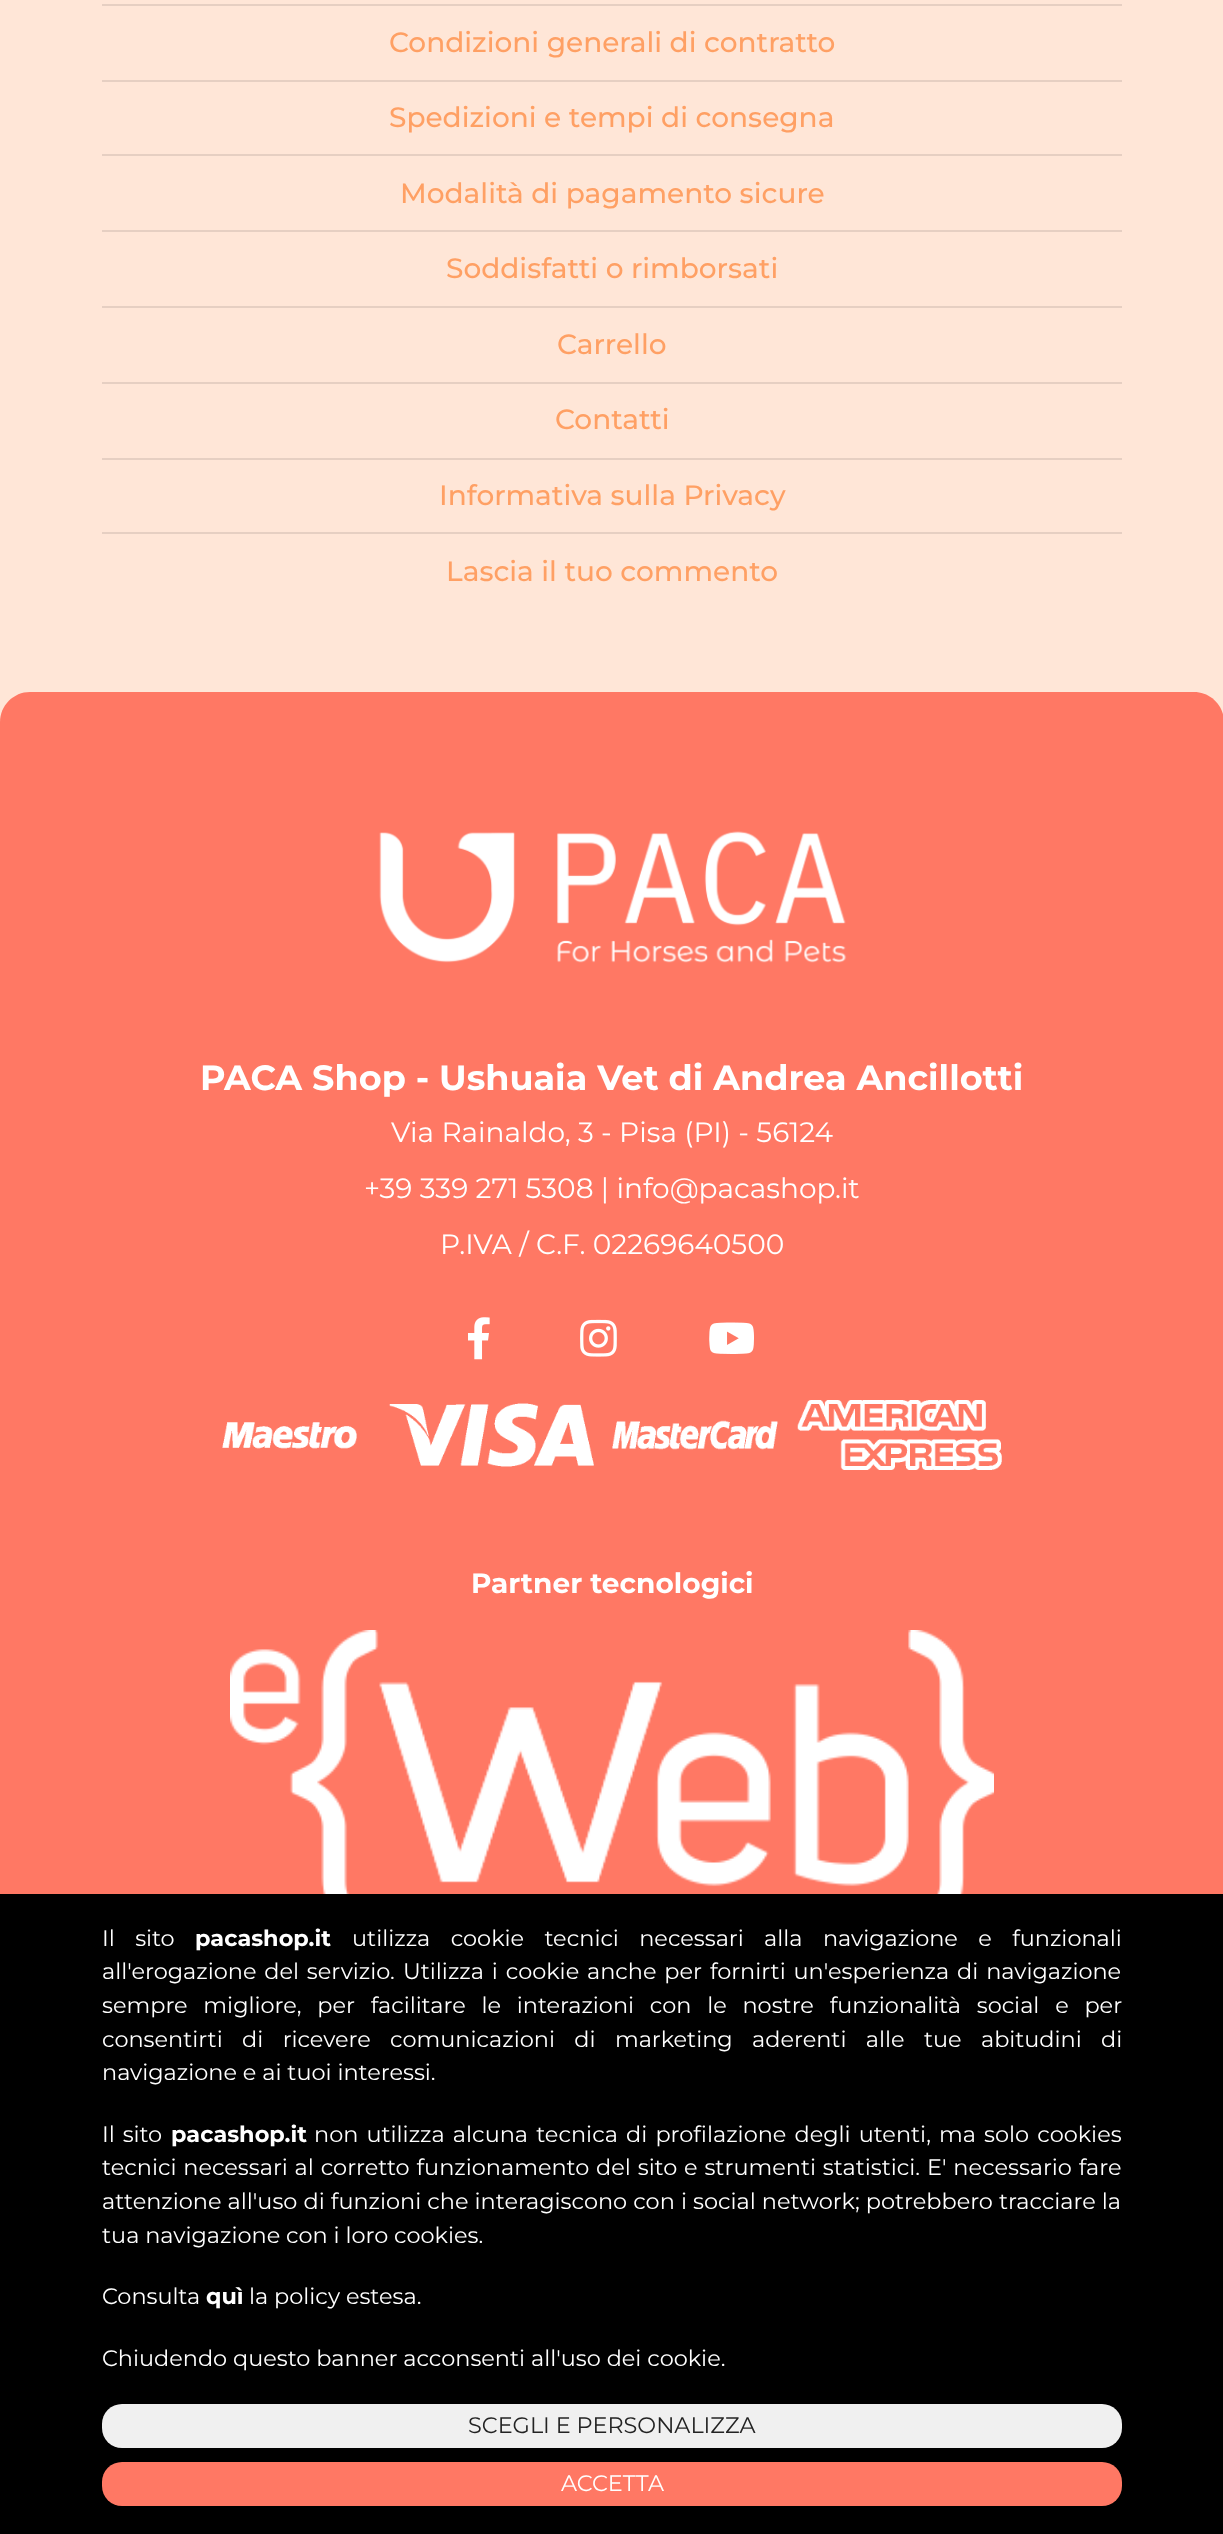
async function draw(canvas) {
	canvas.width = 1223;
	canvas.height = 2534;
	const c = canvas.getContext('2d');
	c.miterLimit = 4;
	c.fontKerning = 'normal';
	async function loadImage(src) {
		const img = new Image();
		img.src = src;
		await img.decode();
		return img;
	}

	c.fillStyle = '#ffe6d7';
	c.fillRect(0, 0, 1223, 2534);
	c.fillStyle = '#e6cfc2';
	c.fillRect(102, 4, 1020, 2);
	c.font = '500 28px Montserrat';
	c.fillStyle = '#ffa064';
	c.fillText('Condizioni generali di contratto', 389, 52);
	c.fillStyle = '#e6cfc2';
	c.fillRect(102, 80, 1020, 2);
	c.fillStyle = '#ffa064';
	c.fillText('Spedizioni e tempi di consegna', 389, 127);
	c.fillStyle = '#e6cfc2';
	c.fillRect(102, 154, 1020, 2);
	c.fillStyle = '#ffa064';
	c.fillText('Modalità di pagamento sicure', 400, 203);
	c.fillStyle = '#e6cfc2';
	c.fillRect(102, 230, 1020, 2);
	c.fillStyle = '#ffa064';
	c.fillText('Soddisfatti o rimborsati', 446, 278);
	c.fillStyle = '#e6cfc2';
	c.fillRect(102, 306, 1020, 2);
	c.fillStyle = '#ffa064';
	c.fillText('Carrello', 557, 354);
	c.fillStyle = '#e6cfc2';
	c.fillRect(102, 382, 1020, 2);
	c.fillStyle = '#ffa064';
	c.fillText('Contatti', 555, 429);
	c.fillStyle = '#e6cfc2';
	c.fillRect(102, 458, 1020, 2);
	c.fillStyle = '#ffa064';
	c.fillText('Informativa sulla Privacy', 439, 505);
	c.fillStyle = '#e6cfc2';
	c.fillRect(102, 532, 1020, 2);
	c.fillStyle = '#ffa064';
	c.fillText('Lascia il tuo commento', 446, 581);
	c.fillStyle = '#ff7864';
	c.beginPath();
	c.moveTo(30, 692);
	c.lineTo(1194, 692);
	c.bezierCurveTo(1210.5, 692, 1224, 705.5, 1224, 722);
	c.lineTo(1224, 2474);
	c.lineTo(0, 2474);
	c.lineTo(0, 722);
	c.bezierCurveTo(0, 705.5, 13.5, 692, 30, 692);
	c.closePath();
	c.fill();
	c.drawImage(await loadImage('img1.png'), 379, 831, 468, 132);
	c.font = 'bold 35px Montserrat';
	c.fillStyle = '#fff';
	c.fillText('PACA Shop - Ushuaia Vet di Andrea Ancillotti', 200, 1090);
	c.font = '28px Montserrat';
	for (const [text, x, y] of [
		['Via Rainaldo, 3 - Pisa (PI) - 56124', 391, 1142],
		['+39 339 271 5308 | info@pacashop.it', 364, 1198],
		['P.IVA / C.F. 02269640500', 440, 1254],
	]) {
		c.fillText(text, x, y);
	}
	c.drawImage(await loadImage('img2.png'), 468, 1317, 22, 43);
	c.drawImage(await loadImage('img3.png'), 580, 1319, 37, 38);
	c.drawImage(await loadImage('img4.png'), 709, 1322, 45, 32);
	c.drawImage(await loadImage('img5.png'), 222, 1400, 780, 70);
	c.font = 'bold 28px Montserrat';
	c.fillText('Partner tecnologici', 471, 1593);
	c.drawImage(await loadImage('img6.png'), 230, 1630, 764, 264);
	c.fillStyle = '#000';
	c.fillRect(0, 1894, 1223, 640);
	c.wordSpacing = '14.5px';
	c.font = '22.4px Montserrat';
	c.fillStyle = '#fff';
	c.fillText('Il sito', 102, 1946);
	c.wordSpacing = '0px';
	c.font = 'bold 22.4px Montserrat';
	c.fillText('pacashop.it', 195, 1946);
	c.wordSpacing = '14.5px';
	c.font = '22.4px Montserrat';
	c.fillText('utilizza cookie tecnici necessari alla navigazione e funzionali', 352, 1946);
	c.wordSpacing = '2px';
	c.fillText('all\'erogazione del servizio.', 102, 1979);
	c.fillText('Utilizza i cookie anche per fornirti un\'esperienza di navigazione', 403, 1979);
	c.wordSpacing = '9.9px';
	c.fillText('sempre migliore, per facilitare le interazioni con le nostre funzionalità social e per', 102, 2013);
	c.wordSpacing = '13.5px';
	c.fillText('consentirti di ricevere comunicazioni di marketing aderenti alle tue abitudini di', 102, 2047);
	c.wordSpacing = '0px';
	c.fillText('navigazione e ai tuoi interessi.', 102, 2080);
	c.wordSpacing = '2px';
	c.fillText('Il sito', 102, 2142);
	c.wordSpacing = '0px';
	c.font = 'bold 22.4px Montserrat';
	c.fillText('pacashop.it', 171, 2142);
	c.wordSpacing = '2.25px';
	c.font = '22.4px Montserrat';
	c.fillText('non utilizza alcuna tecnica di profilazione degli utenti, ma solo cookies', 314, 2142);
	c.wordSpacing = '1px';
	c.fillText('tecnici necessari al corretto funzionamento del sito e strumenti statistici.', 102, 2175);
	c.fillText('E\' necessario fare', 927, 2175);
	c.wordSpacing = '0.25px';
	c.fillText('attenzione all\'uso di funzioni che interagiscono con i social network; potrebbero tracciare la', 102, 2209);
	c.wordSpacing = '0px';
	c.fillText('tua navigazione con i loro cookies.', 102, 2243);
	c.fillText('Consulta', 102, 2304);
	c.font = 'bold 22.4px Montserrat';
	c.fillText('quì', 206, 2304);
	c.font = '22.4px Montserrat';
	c.fillText('la policy estesa.', 249, 2304);
	c.fillText('Chiudendo questo banner acconsenti all\'uso dei cookie.', 102, 2366);
	c.fillStyle = '#f0f0f0';
	c.beginPath();
	c.roundRect(102, 2404, 1020, 44, 20);
	c.fill();
	c.fillStyle = '#232323';
	c.fillText('SCEGLI E PERSONALIZZA', 468, 2433);
	c.fillStyle = '#ff7864';
	c.beginPath();
	c.roundRect(102, 2462, 1020, 44, 20);
	c.fill();
	c.fillStyle = '#fff';
	c.fillText('ACCETTA', 561, 2491);
}

draw(document.querySelector('canvas'));
